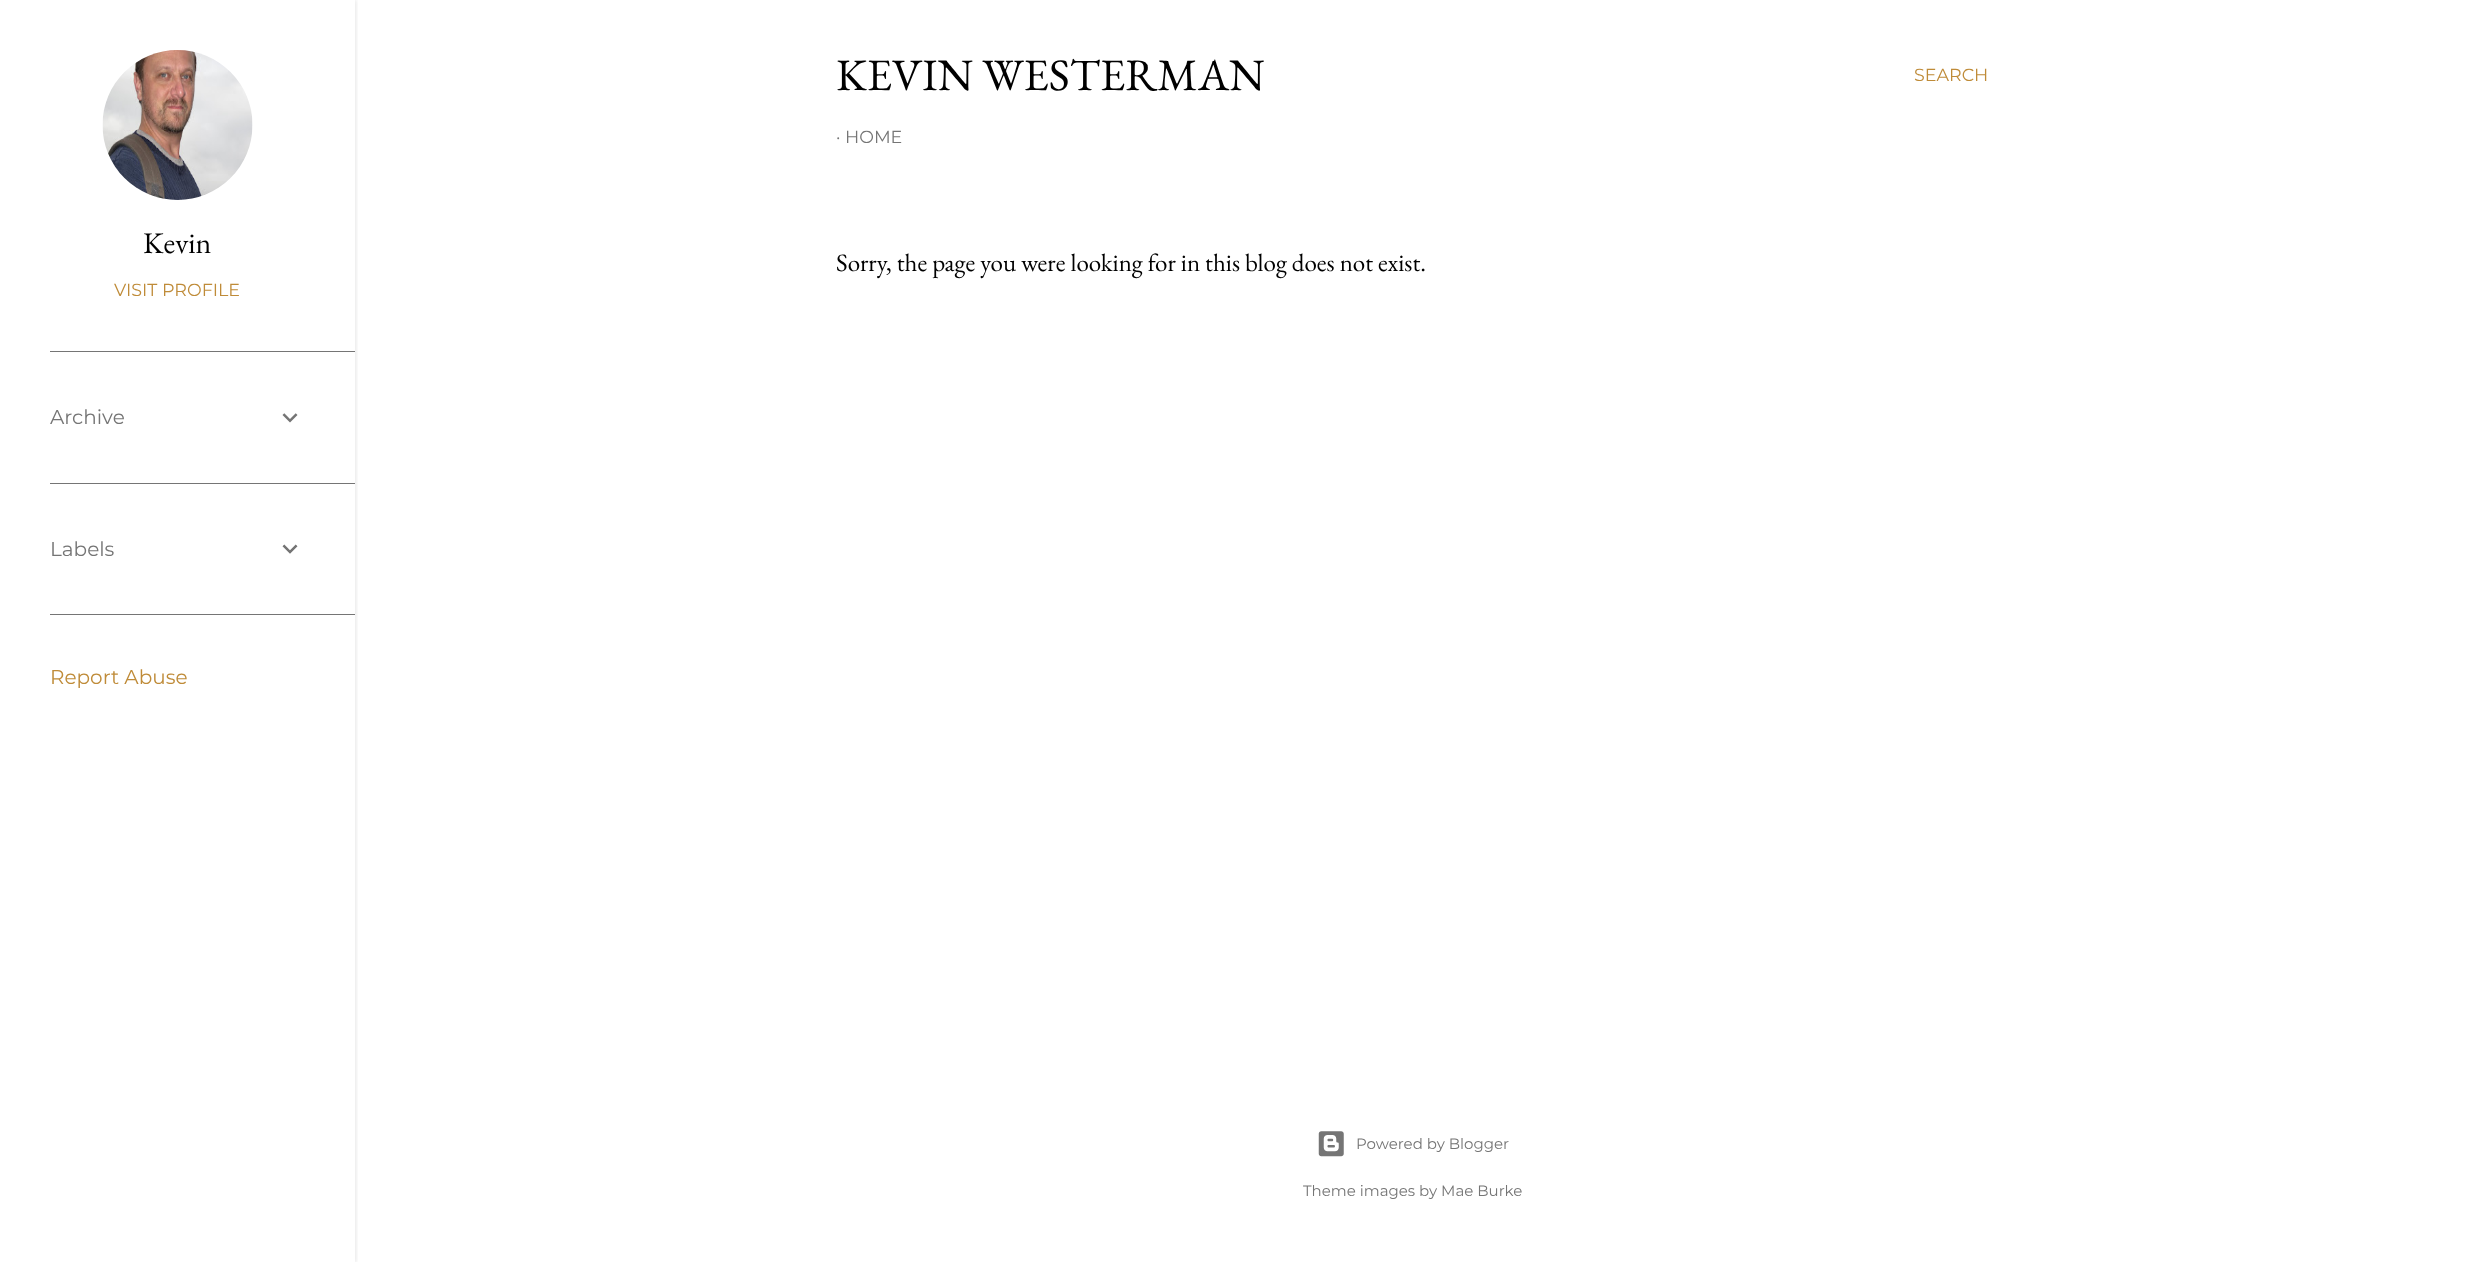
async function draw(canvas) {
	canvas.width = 2470;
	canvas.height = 1262;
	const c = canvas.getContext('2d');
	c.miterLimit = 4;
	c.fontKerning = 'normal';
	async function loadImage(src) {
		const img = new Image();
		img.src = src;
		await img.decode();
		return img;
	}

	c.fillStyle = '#fff';
	c.fillRect(0, 0, 2470, 1262);
	c.save();
	c.beginPath();
	c.rect(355, 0, 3, 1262);
	c.clip();
	c.fillStyle = '#0000001a';
	c.filter = 'blur(2px)';
	c.beginPath();
	c.rect(1, 0, 355, 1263);
	c.fill();
	c.filter = 'none';
	c.restore();
	c.drawImage(await loadImage('img1.png'), 102, 50, 151, 150);
	c.font = '30px EB Garamond';
	c.fillStyle = '#000';
	c.fillText('Kevin', 143, 253);
	c.font = '17.5px Montserrat';
	c.fillStyle = '#bf8b38';
	c.fillText('VISIT PROFILE', 114, 296);
	c.fillStyle = '#757575';
	c.fillRect(50, 351, 305, 1);
	c.font = '20px Montserrat';
	c.fillText('Archive', 50, 424);
	c.drawImage(await loadImage('img2.png'), 282, 413, 16, 10);
	c.fillRect(50, 483, 305, 1);
	c.fillText('Labels', 50, 556);
	c.drawImage(await loadImage('img3.png'), 282, 544, 16, 10);
	c.fillRect(50, 614, 305, 1);
	c.fillStyle = '#bf8b38';
	c.fillText('Report Abuse', 50, 684);
	c.font = '45px EB Garamond';
	c.fillStyle = '#000';
	c.fillText('KEVIN WESTERMAN', 836, 90);
	c.font = '17.5px Montserrat';
	c.fillStyle = '#757575';
	c.fillText('· HOME', 836, 143);
	c.fillStyle = '#bf8b38';
	c.fillText('SEARCH', 1914, 81);
	c.font = '25px EB Garamond';
	c.fillStyle = '#000';
	c.fillText('Sorry, the page you were looking for in this blog does not exist.', 836, 271);
	c.drawImage(await loadImage('img4.png'), 1318, 1131, 26, 26);
	c.font = '15px Montserrat';
	c.fillStyle = '#757575';
	c.fillText('Powered by Blogger', 1356, 1149);
	c.fillText('Theme images by Mae Burke', 1303, 1196);
}

draw(document.querySelector('canvas'));
